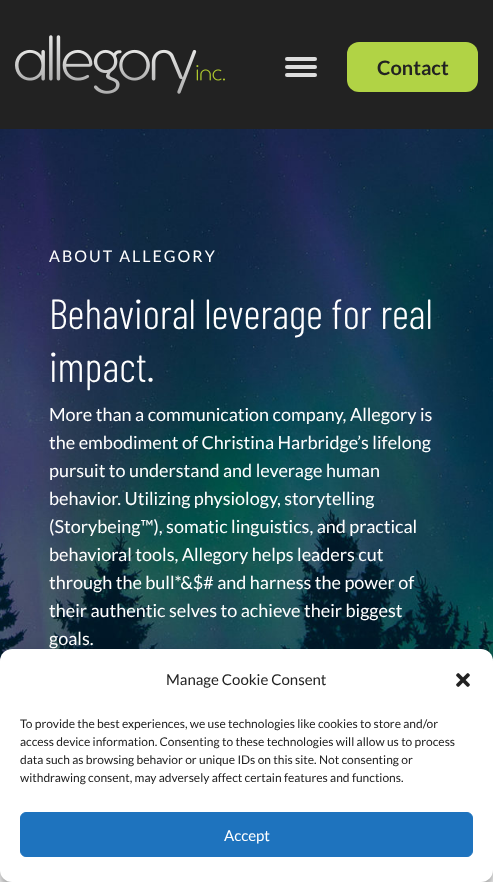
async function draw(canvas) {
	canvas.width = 493;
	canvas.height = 882;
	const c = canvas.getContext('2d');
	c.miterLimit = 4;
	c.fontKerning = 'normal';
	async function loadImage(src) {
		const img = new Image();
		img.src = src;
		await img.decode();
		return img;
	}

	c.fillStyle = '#fff';
	c.fillRect(0, 0, 493, 882);
	c.fillStyle = '#222';
	c.fillRect(0, 0, 493, 129);
	c.drawImage(await loadImage('img1.png'), 15, 35, 210, 59);
	c.fillStyle = '#ddd';
	c.beginPath();
	c.roundRect(285, 57, 32, 4, 2);
	c.fill();
	c.beginPath();
	c.roundRect(285, 65, 32, 4, 2);
	c.fill();
	c.beginPath();
	c.roundRect(285, 73, 32, 4, 2);
	c.fill();
	c.fillStyle = '#b1d345';
	c.beginPath();
	c.roundRect(347, 42, 131, 50, 12);
	c.fill();
	c.font = 'bold 20px Lato';
	c.fillStyle = '#222';
	c.fillText('Contact', 377, 75);
	c.drawImage(await loadImage('img2.png'), 0, 129, 493, 532);
	c.letterSpacing = '2px';
	c.font = '16px Lato';
	c.fillStyle = '#fff';
	c.fillText('ABOUT ALLEGORY', 49, 262);
	c.letterSpacing = '0px';
	c.font = '300 42px Barlow Condensed';
	c.fillText('Behavioral leverage for real', 49, 329);
	c.fillText('impact.', 49, 382);
	c.font = '18px Lato';
	for (const [text, x, y] of [
		['More than a communication company, Allegory is', 49, 421],
		['the embodiment of Christina Harbridge’s lifelong', 49, 449],
		['pursuit to understand and leverage human', 49, 477],
		['behavior. Utilizing physiology, storytelling', 49, 505],
		['(Storybeing™), somatic linguistics, and practical', 49, 533],
		['behavioral tools, Allegory helps leaders cut', 49, 561],
		['through the bull*&$# and harness the power of', 49, 589],
		['their authentic selves to achieve their biggest', 49, 617],
		['goals.', 49, 645],
	]) {
		c.fillText(text, x, y);
	}
	c.fillStyle = '#808080';
	c.filter = 'blur(2.5px)';
	c.beginPath();
	c.roundRect(423, 808, 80, 60, 2);
	c.fill();
	c.filter = 'none';
	c.fillStyle = '#0000003b';
	c.filter = 'blur(3px)';
	c.beginPath();
	c.roundRect(0, 655, 493, 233, 12);
	c.fill();
	c.filter = 'none';
	c.fillStyle = '#00000030';
	c.filter = 'blur(10px)';
	c.beginPath();
	c.roundRect(0, 659, 493, 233, 12);
	c.fill();
	c.filter = 'none';
	c.fillStyle = '#fff';
	c.beginPath();
	c.roundRect(0, 649, 493, 233, 12);
	c.fill();
	c.font = '15px Lato';
	c.fillStyle = '#222';
	c.fillText('Manage Cookie Consent', 166, 685);
	c.drawImage(await loadImage('img3.png'), 456, 673, 14, 14);
	c.font = '12px Lato';
	for (const [text, x, y] of [
		['To provide the best experiences, we use technologies like cookies to store and/or', 20, 728],
		['access device information. Consenting to these technologies will allow us to process', 20, 746],
		['data such as browsing behavior or unique IDs on this site. Not consenting or', 20, 764],
		['withdrawing consent, may adversely affect certain features and functions.', 20, 782],
	]) {
		c.fillText(text, x, y);
	}
	c.fillStyle = '#1e73be';
	c.beginPath();
	c.roundRect(20.5, 812.5, 452, 44, 5.5);
	c.fill();
	c.strokeStyle = '#1e73be';
	c.stroke();
	c.font = '15px Lato';
	c.fillStyle = '#fff';
	c.fillText('Accept', 224, 841);
}

draw(document.querySelector('canvas'));
